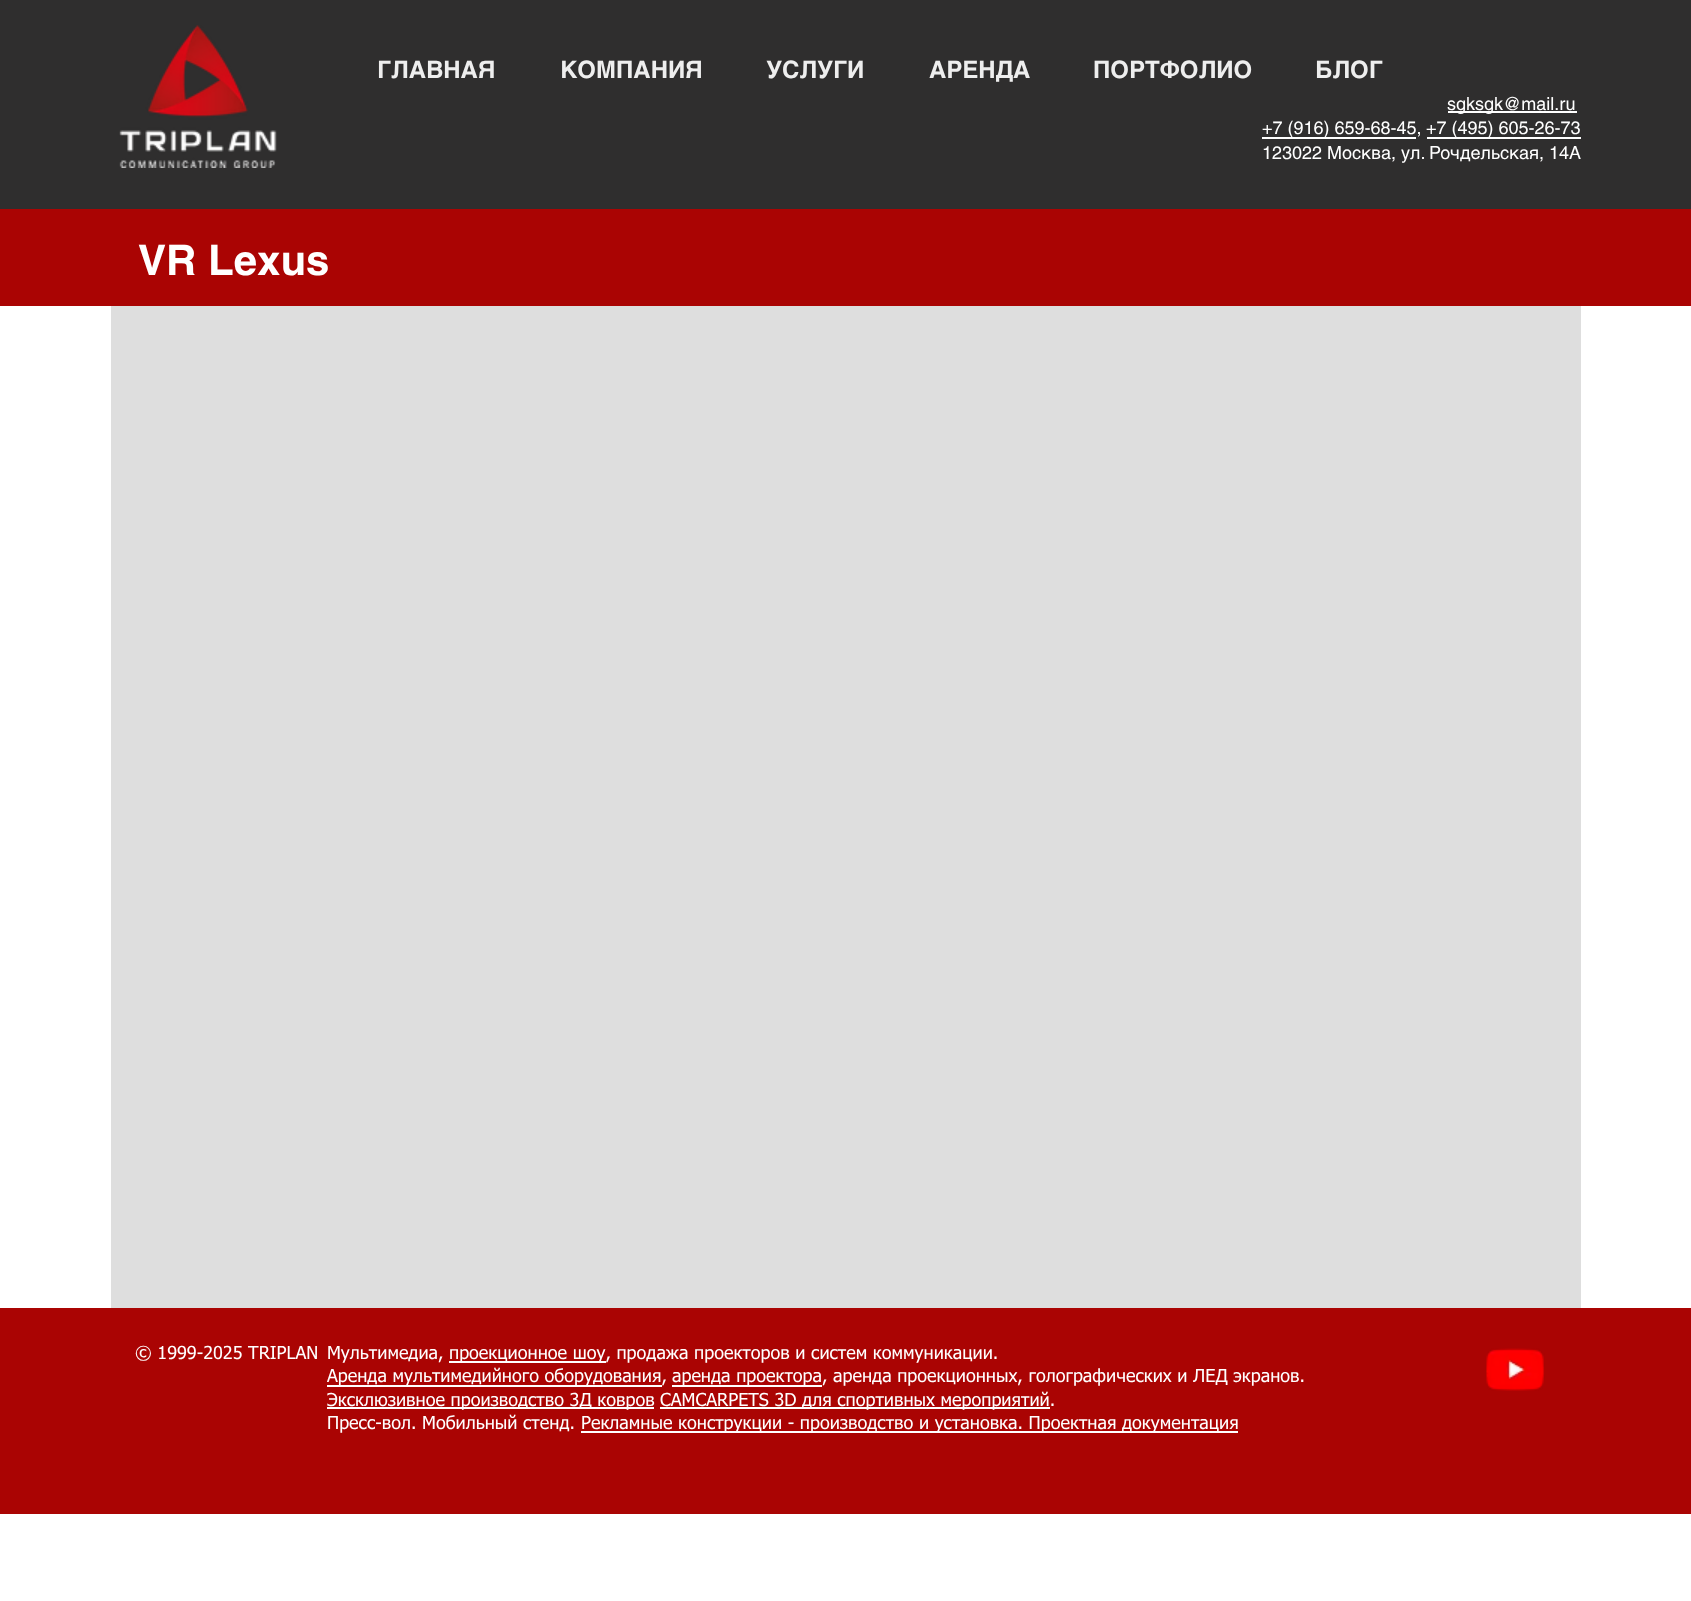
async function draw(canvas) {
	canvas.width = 1691;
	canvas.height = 1601;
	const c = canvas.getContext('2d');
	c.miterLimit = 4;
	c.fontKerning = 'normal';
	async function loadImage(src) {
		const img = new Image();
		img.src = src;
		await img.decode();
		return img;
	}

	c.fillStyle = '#fff';
	c.fillRect(0, 0, 1691, 1601);
	c.fillStyle = '#2f2e2e';
	c.fillRect(0, 0, 1691, 209);
	c.drawImage(await loadImage('img1.png'), 119, 25, 158, 143);
	c.font = 'bold 24px helvetica';
	c.fillStyle = '#eee';
	for (const [text, x, y] of [
		['ГЛАВНАЯ', 377, 78],
		['КОМПАНИЯ', 560, 78],
		['УСЛУГИ', 766, 78],
		['АРЕНДА', 929, 78],
		['ПОРТФОЛИО', 1093, 78],
		['БЛОГ', 1315, 78],
	]) {
		c.fillText(text, x, y);
	}
	c.fillStyle = '#fff';
	c.fillRect(1448, 111, 129, 2);
	c.font = '18px helvetica';
	c.fillText('sgksgk@mail.ru', 1447, 110);
	c.fillRect(1262, 137, 154, 2);
	c.fillText('+7 (916) 659-68-45,', 1262, 134);
	c.fillRect(1427, 137, 154, 2);
	c.fillText('+7 (495) 605-26-73', 1426, 134);
	c.fillText('123022 Москва, ул. Рочдельская, 14А', 1262, 159);
	c.fillStyle = '#aa0403';
	c.fillRect(0, 209, 1691, 97);
	c.font = 'bold 42px helvetica';
	c.fillStyle = '#fff';
	c.fillText('VR Lexus', 138, 275);
	c.fillStyle = '#dedede';
	c.fillRect(111, 306, 1470, 1002);
	c.fillStyle = '#aa0403';
	c.fillRect(0, 1308, 1691, 206);
	c.font = '18px tahoma';
	c.fillStyle = '#fff';
	c.fillText('© 1999-2025 TRIPLAN', 135, 1359);
	c.fillText('Мультимедиа,', 327, 1359);
	c.fillRect(449, 1361, 157, 2);
	c.fillText('проекционное шоу, продажа проекторов и систем коммуникации.', 449, 1359);
	c.fillRect(327, 1385, 335, 2);
	c.fillText('Аренда мультимедийного оборудования,', 327, 1382);
	c.fillRect(672, 1385, 150, 2);
	c.fillText('аренда проектора, аренда проекционных, голографических и ЛЕД экранов.', 672, 1382);
	c.fillRect(327, 1407, 327, 2);
	c.fillText('Эксклюзивное производство 3Д ковров', 327, 1406);
	c.fillRect(660, 1407, 390, 2);
	c.fillText('CAMCARPETS 3D для спортивных мероприятий.', 660, 1406);
	c.fillText('Пресс-вол. Мобильный стенд.', 327, 1429);
	c.fillRect(581, 1431, 657, 2);
	c.fillText('Рекламные конструкции - производство и установка. Проектная документация', 581, 1429);
	c.drawImage(await loadImage('img2.png'), 1486, 1348, 59, 43);
}

draw(document.querySelector('canvas'));
